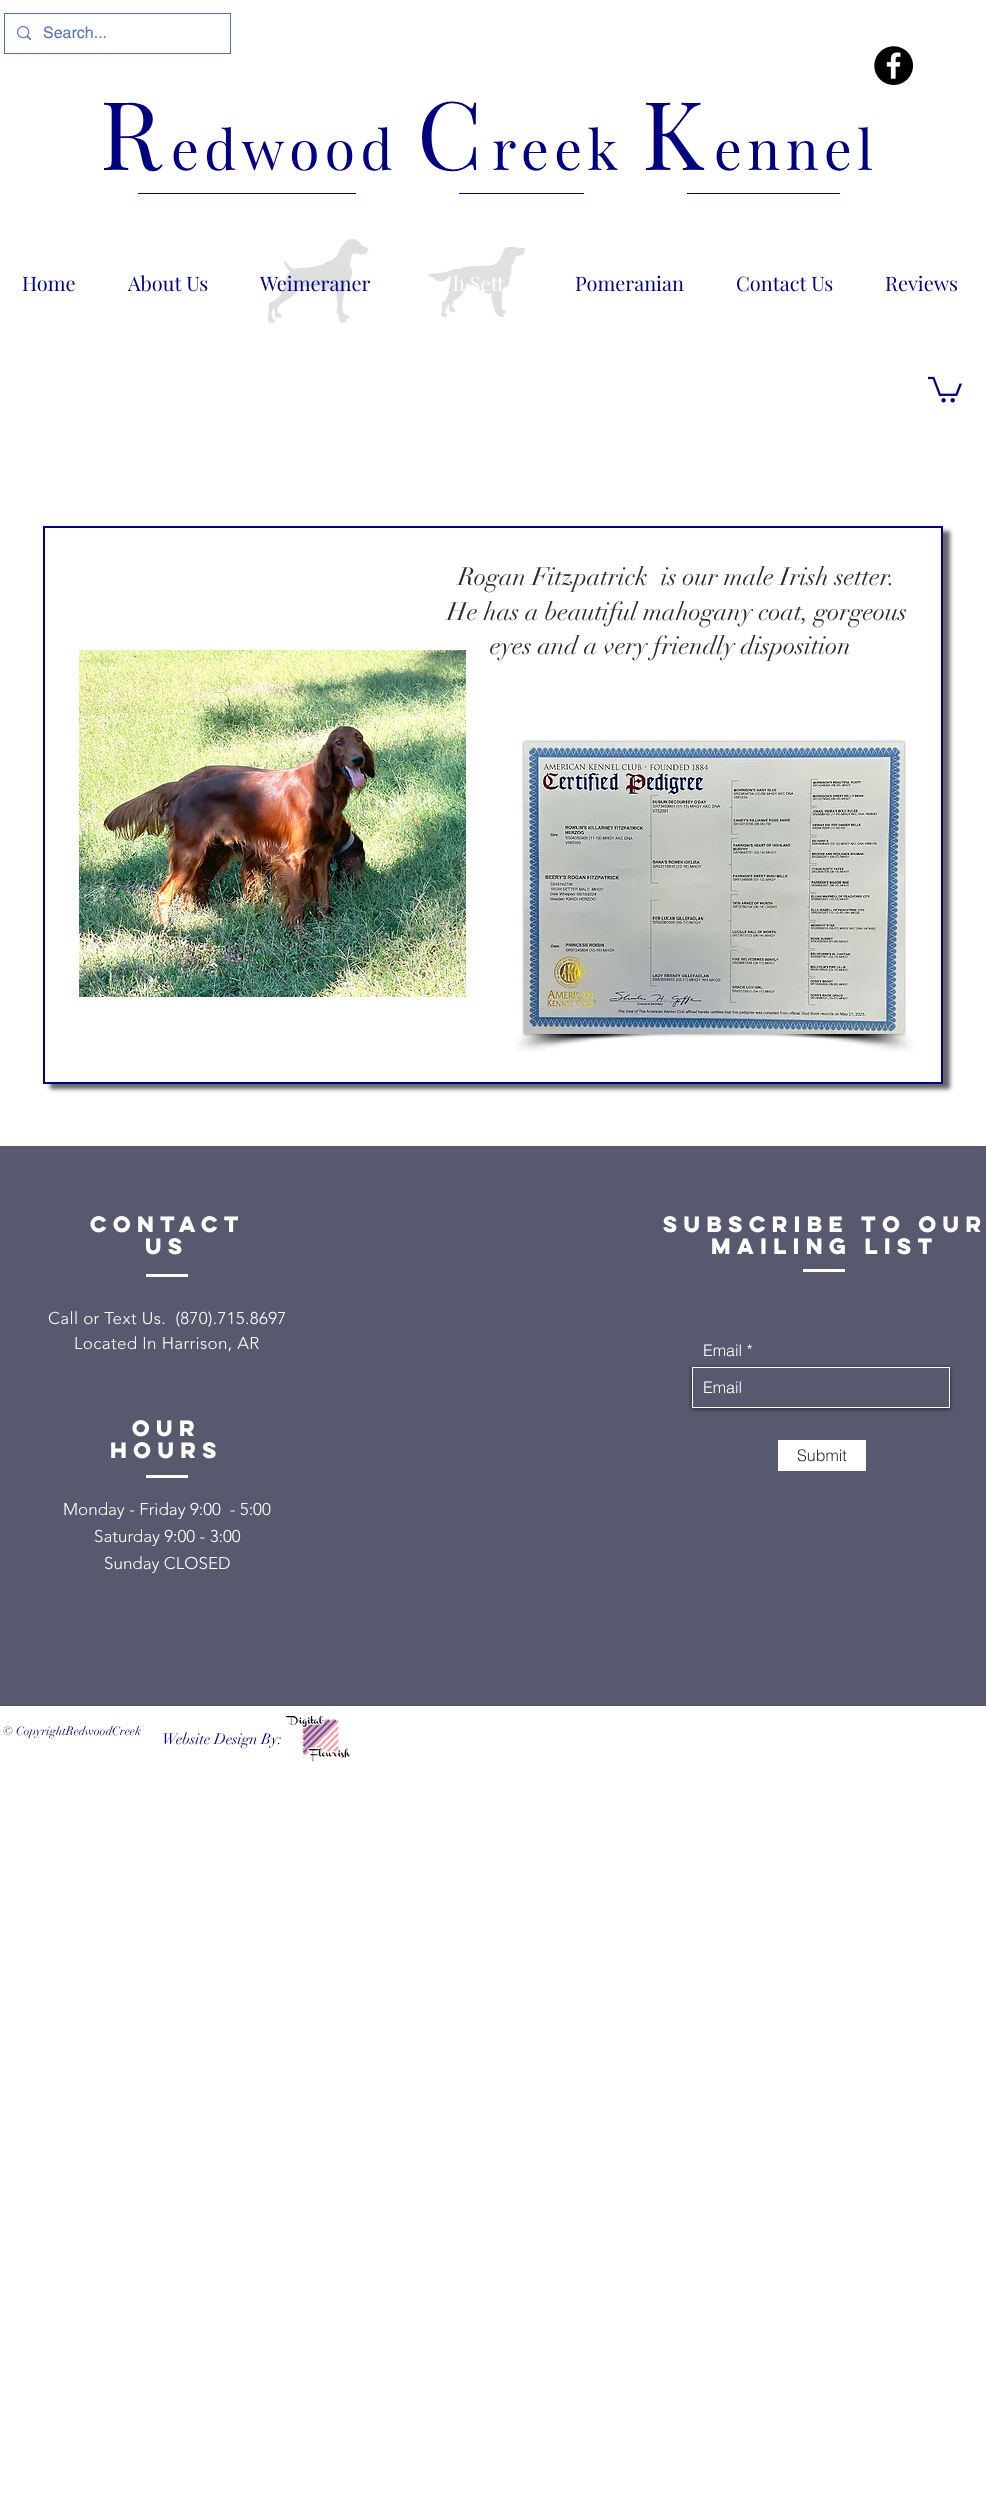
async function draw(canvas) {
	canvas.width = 986;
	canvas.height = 2510;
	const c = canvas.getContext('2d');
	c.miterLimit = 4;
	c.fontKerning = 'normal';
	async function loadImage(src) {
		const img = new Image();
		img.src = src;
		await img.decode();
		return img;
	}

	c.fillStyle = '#fff';
	c.fillRect(0, 0, 986, 2510);
	c.strokeStyle = '#566fb8';
	c.strokeRect(4.5, 13.5, 226, 40);
	c.drawImage(await loadImage('img1.png'), 17, 26, 14, 15);
	c.font = '16px helvetica';
	c.fillStyle = '#566fb8';
	c.fillText('Search...', 43, 38);
	c.drawImage(await loadImage('img2.png'), 874, 46, 39, 39);
	c.letterSpacing = '10px';
	c.font = '95px Playfair Display';
	c.fillStyle = '#000080';
	c.fillText('R', 100, 170);
	c.letterSpacing = '5.5px';
	c.font = '55px Playfair Display';
	c.fillText('edwood', 171, 170);
	c.letterSpacing = '10px';
	c.font = '95px Playfair Display';
	c.fillText('C', 417, 170);
	c.letterSpacing = '5.5px';
	c.font = '55px Playfair Display';
	c.fillText('reek', 492, 170);
	c.letterSpacing = '10px';
	c.font = '95px Playfair Display';
	c.fillText('K', 642, 170);
	c.letterSpacing = '5.5px';
	c.font = '55px Playfair Display';
	c.fillText('ennel', 714, 170);
	for (const [x, y, w, h, color] of [
		[138, 193, 218, 1, '#000080'],
		[459, 193, 125, 1, '#000080'],
		[687, 193, 153, 1, '#000080'],
	]) {
		c.fillStyle = color;
		c.fillRect(x, y, w, h);
	}
	c.drawImage(await loadImage('img3.png'), 268, 239, 101, 84);
	c.drawImage(await loadImage('img4.png'), 427, 247, 98, 70);
	c.letterSpacing = '0px';
	c.font = '20px Playfair Display';
	for (const [text, x, y] of [
		['Home', 22, 291],
		['About Us', 128, 291],
		['Weimeraner', 260, 291],
	]) {
		c.fillText(text, x, y);
	}
	c.fillStyle = '#fff';
	c.fillText('h Sett', 453, 291);
	c.fillStyle = '#000080';
	for (const [text, x, y] of [
		['Pomeranian', 575, 291],
		['Contact Us', 736, 291],
		['Reviews', 885, 291],
	]) {
		c.fillText(text, x, y);
	}
	c.drawImage(await loadImage('img5.png'), 928, 376, 34, 27);
	c.save();
	c.beginPath();
	c.moveTo(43, 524);
	c.lineTo(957, 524);
	c.lineTo(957, 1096);
	c.lineTo(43, 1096);
	c.closePath();
	c.moveTo(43, 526);
	c.lineTo(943, 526);
	c.lineTo(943, 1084);
	c.lineTo(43, 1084);
	c.closePath();
	c.clip('evenodd');
	c.fillStyle = '#00000099';
	c.filter = 'blur(2px)';
	c.beginPath();
	c.rect(50, 531, 900, 558);
	c.fill();
	c.filter = 'none';
	c.restore();
	c.strokeStyle = '#000080';
	c.lineWidth = 2;
	c.strokeRect(44, 527, 898, 556);
	c.font = '25px didot';
	c.fillStyle = '#2a2a2a';
	for (const [text, x, y] of [
		['Rogan Fitzpatrick', 458, 585],
		['is our male Irish setter.', 661, 585],
		['He has a beautiful mahogany coat, gorgeous', 447, 620],
		['eyes and a very friendly disposition', 490, 654],
	]) {
		c.fillText(text, x, y);
	}
	c.drawImage(await loadImage('img6.png'), 79, 650, 387, 347);
	c.fillStyle = '#00000080';
	c.filter = 'blur(1.5px)';
	c.beginPath();
	c.rect(524, 742, 380, 292);
	c.fill();
	c.filter = 'none';
	c.drawImage(await loadImage('img7.png'), 524, 742, 380, 292);
	c.drawImage(await loadImage('img8.png'), 515, 1034, 154, 18);
	c.drawImage(await loadImage('img9.png'), 759, 1034, 154, 18);
	c.fillStyle = '#58586e';
	c.fillRect(0, 1146, 986, 560);
	c.letterSpacing = '2px';
	c.font = 'bold 20px "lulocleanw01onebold"';
	c.fillStyle = '#fff';
	c.fillText('CONTACT', 90, 1232);
	c.fillText('US', 145, 1254);
	c.fillRect(146, 1274, 42, 3);
	c.letterSpacing = '0.35px';
	c.font = '300 17px "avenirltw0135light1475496"';
	c.fillText('Call or Text Us.  (870).715.8697', 48, 1324);
	c.fillText('Located In Harrison, AR', 74, 1349);
	c.letterSpacing = '2px';
	c.font = 'bold 20px "lulocleanw01onebold"';
	c.fillText('Our', 132, 1436);
	c.fillText('Hours', 110, 1458);
	c.fillRect(146, 1475, 42, 3);
	c.letterSpacing = '0px';
	c.font = '300 17px "avenirltw0135light1475496"';
	for (const [text, x, y] of [
		['Monday - Friday 9:00  - 5:00', 63, 1515],
		['Saturday 9:00 - 3:00', 94, 1542],
		['Sunday CLOSED', 104, 1569],
	]) {
		c.fillText(text, x, y);
	}
	c.letterSpacing = '2px';
	c.font = 'bold 20px "lulocleanw01onebold"';
	c.fillText('Subscribe To Our', 663, 1232);
	c.fillText('Mailing List', 711, 1254);
	c.fillRect(803, 1269, 42, 3);
	c.letterSpacing = '0px';
	c.font = '300 16px helvetica';
	c.fillText('Email *', 703, 1356);
	c.save();
	c.beginPath();
	c.moveTo(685, 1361);
	c.lineTo(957, 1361);
	c.lineTo(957, 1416);
	c.lineTo(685, 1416);
	c.closePath();
	c.moveTo(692, 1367);
	c.lineTo(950, 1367);
	c.lineTo(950, 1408);
	c.lineTo(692, 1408);
	c.closePath();
	c.clip('evenodd');
	c.fillStyle = '#00000099';
	c.filter = 'blur(2px)';
	c.beginPath();
	c.rect(692, 1368, 258, 41);
	c.fill();
	c.filter = 'none';
	c.restore();
	c.strokeStyle = '#fff';
	c.lineWidth = 1;
	c.strokeRect(692.5, 1367.5, 257, 40);
	c.fillText('Email', 703, 1393);
	c.fillRect(778, 1440, 88, 31);
	c.fillStyle = '#2a2a2a';
	c.fillText('Submit', 797, 1461);
	c.font = '12px didot';
	c.fillStyle = '#000080';
	c.fillText('© CopyrightRedwoodCreek', 3, 1735);
	c.font = '15px didot';
	c.fillText('Website Design By:', 162, 1744);
	c.drawImage(await loadImage('img10.png'), 285, 1716, 66, 46);
}

draw(document.querySelector('canvas'));
